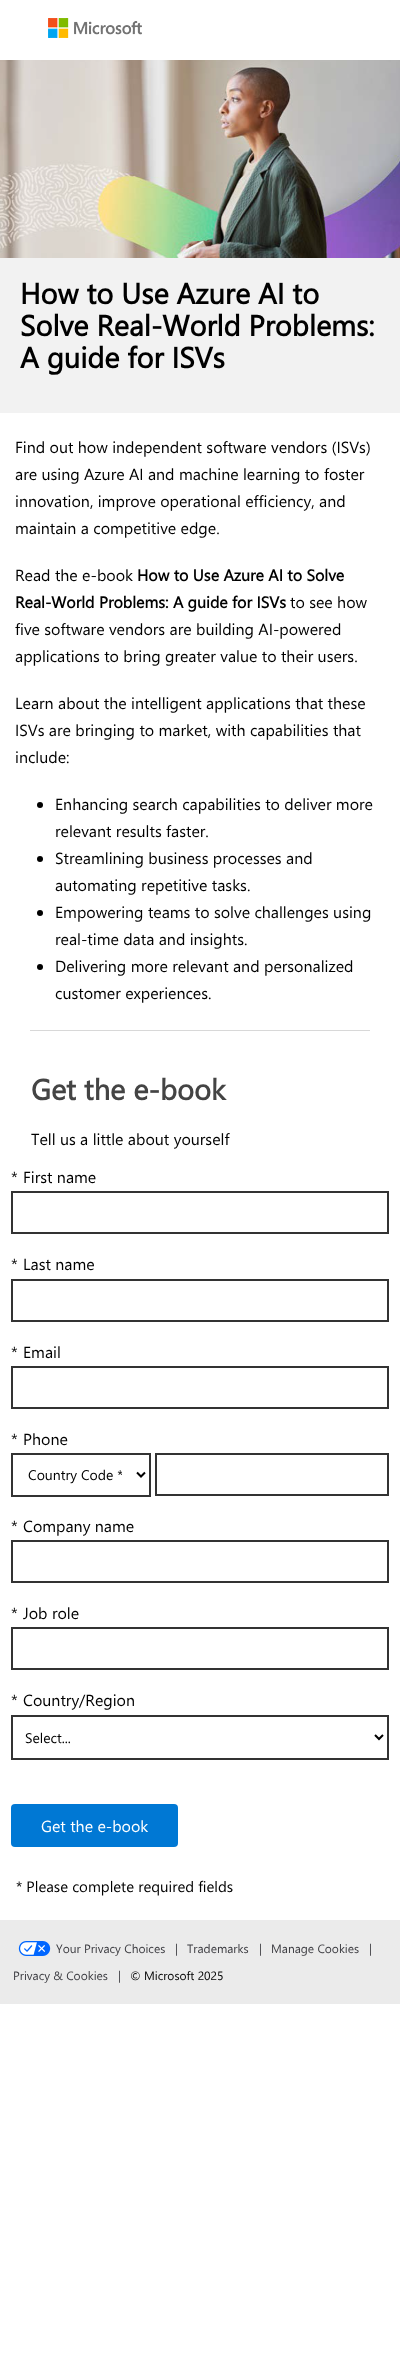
async function draw(canvas) {
	canvas.width = 400;
	canvas.height = 2367;
	const c = canvas.getContext('2d');
	c.miterLimit = 4;
	c.fontKerning = 'normal';
	async function loadImage(src) {
		const img = new Image();
		img.src = src;
		await img.decode();
		return img;
	}

	c.fillStyle = '#fff';
	c.fillRect(0, 0, 400, 2367);
	c.drawImage(await loadImage('img1.png'), 48, 18, 94, 20);
	c.drawImage(await loadImage('img2.png'), 0, 60, 400, 198);
	c.fillStyle = '#f2f2f2';
	c.fillRect(0, 258, 400, 155);
	c.font = 'bold 29px Segoe UI';
	c.fillStyle = '#000';
	for (const [text, x, y] of [
		['How to Use Azure AI to', 20, 304],
		['Solve Real-World Problems:', 20, 336],
		['A guide for ISVs', 20, 368],
	]) {
		c.fillText(text, x, y);
	}
	c.font = '16px Segoe UI';
	for (const [text, x, y] of [
		['Find out how independent software vendors (ISVs)', 15, 453],
		['are using Azure AI and machine learning to foster', 15, 480],
		['innovation, improve operational efficiency, and', 15, 507],
		['maintain a competitive edge.', 15, 534],
		['Read the e-book', 15, 581],
	]) {
		c.fillText(text, x, y);
	}
	c.font = 'bold 16px Segoe UI';
	c.fillText('How to Use Azure AI to Solve', 137, 581);
	c.fillText('Real-World Problems: A guide for ISVs', 15, 608);
	c.font = '16px Segoe UI';
	for (const [text, x, y] of [
		['to see how', 290, 608],
		['five software vendors are building AI-powered', 15, 635],
		['applications to bring greater value to their users.', 15, 662],
		['Learn about the intelligent applications that these', 15, 709],
		['ISVs are bringing to market, with capabilities that', 15, 736],
		['include:', 15, 763],
	]) {
		c.fillText(text, x, y);
	}
	c.beginPath();
	c.arc(40, 805, 3, 0, 2 * Math.PI);
	c.fill();
	c.fillText('Enhancing search capabilities to deliver more', 55, 810);
	c.fillText('relevant results faster.', 55, 837);
	c.beginPath();
	c.arc(40, 859, 3, 0, 2 * Math.PI);
	c.fill();
	c.fillText('Streamlining business processes and', 55, 864);
	c.fillText('automating repetitive tasks.', 55, 891);
	c.beginPath();
	c.arc(40, 913, 3, 0, 2 * Math.PI);
	c.fill();
	c.fillText('Empowering teams to solve challenges using', 55, 918);
	c.fillText('real-time data and insights.', 55, 945);
	c.beginPath();
	c.arc(40, 967, 3, 0, 2 * Math.PI);
	c.fill();
	c.fillText('Delivering more relevant and personalized', 55, 972);
	c.fillText('customer experiences.', 55, 999);
	c.fillStyle = '#d8d8d8';
	c.fillRect(30, 1030, 340, 1);
	c.font = 'bold 29px Segoe UI';
	c.fillStyle = '#444';
	c.fillText('Get the e-book', 31, 1100);
	c.font = '16px Segoe UI';
	c.fillStyle = '#000';
	for (const [text, x, y] of [
		['Tell us a little about yourself', 31, 1145],
		['*', 11, 1183],
		['First name', 23, 1183],
	]) {
		c.fillText(text, x, y);
	}
	c.strokeStyle = '#333';
	c.lineWidth = 2;
	c.strokeRect(12, 1192, 376, 41);
	c.fillText('*', 11, 1270);
	c.fillText('Last name', 23, 1270);
	c.strokeRect(12, 1280, 376, 41);
	c.fillText('*', 11, 1358);
	c.fillText('Email', 23, 1358);
	c.strokeRect(12, 1367, 376, 41);
	c.fillText('*', 11, 1445);
	c.fillText('Phone', 23, 1445);
	c.strokeRect(12, 1454, 138, 42);
	c.beginPath();
	c.moveTo(137, 1472.5);
	c.lineTo(141, 1476.5);
	c.lineTo(145, 1472.5);
	c.strokeStyle = '#000';
	c.stroke();
	c.save();
	c.beginPath();
	c.rect(28, 1464, 94, 21);
	c.clip();
	c.font = '14px Segoe UI';
	c.fillText('Country Code *', 28, 1480);
	c.restore();
	c.strokeStyle = '#333';
	c.strokeRect(156, 1454, 232, 41);
	c.fillText('*', 11, 1532);
	c.fillText('Company name', 23, 1532);
	c.strokeRect(12, 1541, 376, 41);
	c.fillText('*', 11, 1619);
	c.fillText('Job role', 23, 1619);
	c.strokeRect(12, 1628, 376, 41);
	c.fillText('*', 11, 1706);
	c.fillText('Country/Region', 23, 1706);
	c.strokeRect(12, 1716, 376, 43);
	c.beginPath();
	c.moveTo(375, 1735);
	c.lineTo(379, 1739);
	c.lineTo(383, 1735);
	c.strokeStyle = '#000';
	c.stroke();
	c.font = '14px Segoe UI';
	c.fillText('Select...', 25, 1743);
	c.fillStyle = '#0078d4';
	c.beginPath();
	c.roundRect(11, 1804, 167, 43, 4);
	c.fill();
	c.font = '16px Segoe UI';
	c.fillStyle = '#fff';
	c.fillText('Get the e-book', 41, 1832);
	c.font = '15px Segoe UI';
	c.fillStyle = '#000';
	c.fillText('* Please complete required fields', 16, 1892);
	c.fillStyle = '#ebebeb';
	c.fillRect(0, 1920, 400, 84);
	c.drawImage(await loadImage('img3.png'), 18, 1941, 33, 15);
	c.font = '12px Segoe UI';
	c.fillStyle = '#3c3c41';
	for (const [text, x, y] of [
		['Your Privacy Choices', 56, 1953],
		['|', 175, 1953],
		['Trademarks', 187, 1953],
		['|', 259, 1953],
		['Manage Cookies', 271, 1953],
		['|', 369, 1953],
		['Privacy & Cookies', 13, 1980],
		['|', 118, 1980],
	]) {
		c.fillText(text, x, y);
	}
	c.fillStyle = '#000';
	c.fillText('© Microsoft 2025', 130, 1980);
}

draw(document.querySelector('canvas'));
